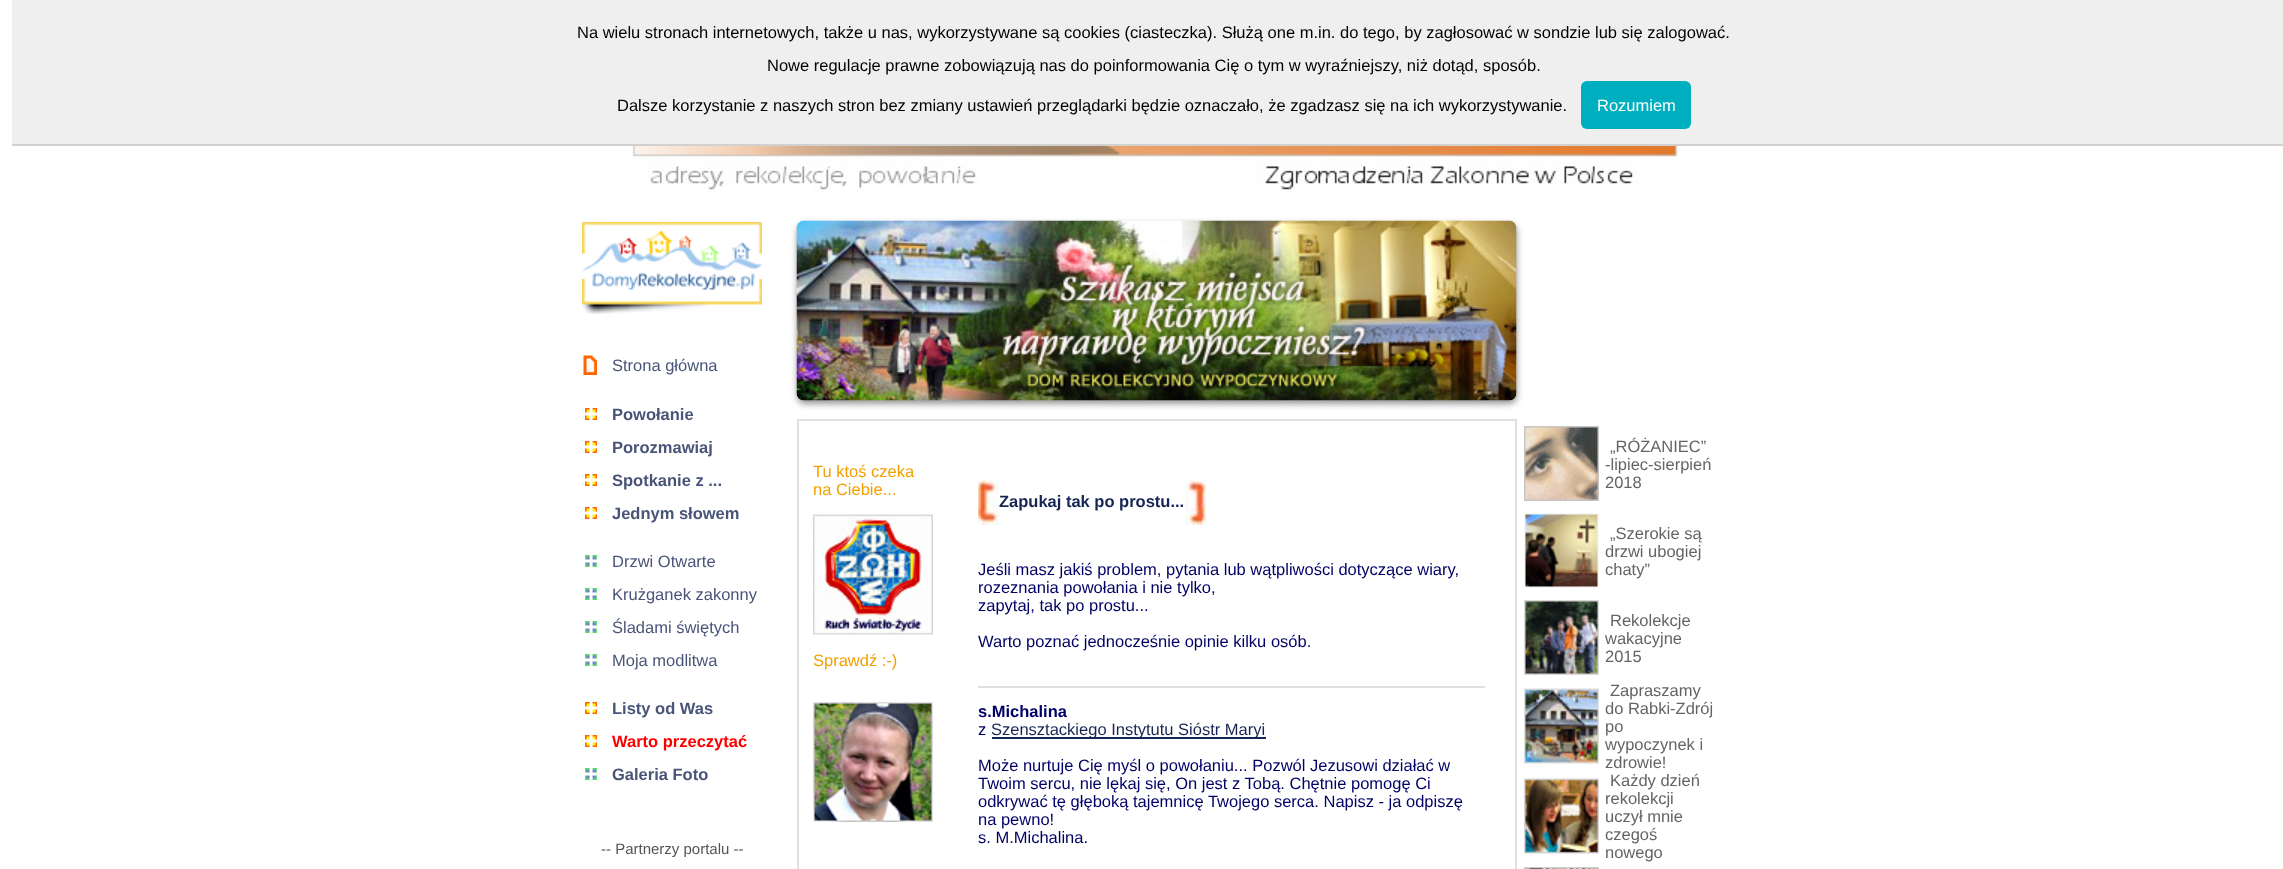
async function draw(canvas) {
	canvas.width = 2283;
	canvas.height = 869;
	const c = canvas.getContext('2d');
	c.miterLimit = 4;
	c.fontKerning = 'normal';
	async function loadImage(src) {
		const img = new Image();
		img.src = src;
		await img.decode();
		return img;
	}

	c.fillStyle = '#fff';
	c.fillRect(0, 0, 2283, 869);
	c.fillStyle = '#efefef';
	c.fillRect(12, 0, 2271, 144);
	c.fillStyle = '#d3d0d0';
	c.fillRect(12, 144, 2271, 2);
	c.font = '16.5px Liberation Sans';
	c.fillStyle = '#000';
	for (const [text, x, y] of [
		['Na wielu stronach internetowych, także u nas, wykorzystywane są cookies (ciasteczka). Służą one m.in. do tego, by zagłosować w sondzie lub się zalogować.', 577, 38],
		['Nowe regulacje prawne zobowiązują nas do poinformowania Cię o tym w wyraźniejszy, niż dotąd, sposób.', 767, 71],
		['Dalsze korzystanie z naszych stron bez zmiany ustawień przeglądarki będzie oznaczało, że zgadzasz się na ich wykorzystywanie.', 617, 111],
	]) {
		c.fillText(text, x, y);
	}
	c.fillStyle = '#00afbf';
	c.beginPath();
	c.roundRect(1581, 81, 110, 48, 6);
	c.fill();
	c.fillStyle = '#fff';
	c.fillText('Rozumiem', 1597, 111);
	c.drawImage(await loadImage('img1.png'), 632, 146, 1046, 50);
	c.drawImage(await loadImage('img2.png'), 582, 222, 180, 92);
	c.drawImage(await loadImage('img3.png'), 583, 355, 14, 20);
	c.fillStyle = '#495578';
	c.fillText('Strona główna', 612, 371);
	c.drawImage(await loadImage('img4.png'), 585, 408, 12, 12);
	c.font = 'bold 16.5px Liberation Sans';
	c.fillText('Powołanie', 612, 420);
	c.drawImage(await loadImage('img4.png'), 585, 441, 12, 12);
	c.fillText('Porozmawiaj', 612, 453);
	c.drawImage(await loadImage('img4.png'), 585, 474, 12, 12);
	c.fillText('Spotkanie z ...', 612, 486);
	c.drawImage(await loadImage('img4.png'), 585, 507, 12, 12);
	c.fillText('Jednym słowem', 612, 519);
	c.drawImage(await loadImage('img5.png'), 585, 555, 12, 12);
	c.font = '16.5px Liberation Sans';
	c.fillText('Drzwi Otwarte', 612, 567);
	c.drawImage(await loadImage('img5.png'), 585, 588, 12, 12);
	c.fillText('Krużganek zakonny', 612, 600);
	c.drawImage(await loadImage('img5.png'), 585, 621, 12, 12);
	c.fillText('Śladami świętych', 612, 633);
	c.drawImage(await loadImage('img5.png'), 585, 654, 12, 12);
	c.fillText('Moja modlitwa', 612, 666);
	c.drawImage(await loadImage('img4.png'), 585, 702, 12, 12);
	c.font = 'bold 16.5px Liberation Sans';
	c.fillText('Listy od Was', 612, 714);
	c.drawImage(await loadImage('img4.png'), 585, 735, 12, 12);
	c.fillStyle = '#f00';
	c.fillText('Warto przeczytać', 612, 747);
	c.drawImage(await loadImage('img5.png'), 585, 768, 12, 12);
	c.fillStyle = '#495578';
	c.fillText('Galeria Foto', 612, 780);
	c.font = '15px Liberation Sans';
	c.fillStyle = '#555';
	c.fillText('-- Partnerzy portalu --', 601, 854);
	c.fillStyle = '#999';
	c.filter = 'blur(3px)';
	c.beginPath();
	c.roundRect(797, 224, 720, 180, 8);
	c.fill();
	c.filter = 'none';
	c.drawImage(await loadImage('img6.png'), 796, 220, 721, 181);
	c.strokeStyle = '#e0e0e0';
	c.lineWidth = 2;
	c.strokeRect(798, 420, 718, 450);
	c.font = '16.5px Liberation Sans';
	c.fillStyle = '#f3a000';
	c.fillText('Tu ktoś czeka', 813, 477);
	c.fillText('na Ciebie...', 813, 495);
	c.drawImage(await loadImage('img7.png'), 813, 514, 120, 121);
	c.fillText('Sprawdź :-)', 813, 666);
	c.fillStyle = '#e0e0e0';
	c.fillRect(978, 686, 507, 2);
	c.drawImage(await loadImage('img8.png'), 978, 480, 21, 45);
	c.font = 'bold 16.5px Liberation Sans';
	c.fillStyle = '#162654';
	c.fillText('Zapukaj tak po prostu...', 999, 507);
	c.drawImage(await loadImage('img9.png'), 1185, 480, 21, 45);
	c.font = '16.5px Liberation Sans';
	c.fillStyle = '#006';
	for (const [text, x, y] of [
		['Jeśli masz jakiś problem, pytania lub wątpliwości dotyczące wiary,', 978, 575],
		['rozeznania powołania i nie tylko,', 978, 593],
		['zapytaj, tak po prostu...', 978, 611],
		['Warto poznać jednocześnie opinie kilku osób.', 978, 647],
	]) {
		c.fillText(text, x, y);
	}
	c.drawImage(await loadImage('img10.png'), 813, 702, 120, 120);
	c.font = 'bold 16.5px Liberation Sans';
	c.fillText('s.Michalina', 978, 717);
	c.font = '16.5px Liberation Sans';
	c.fillText('z', 978, 735);
	c.fillStyle = '#162654';
	c.fillRect(992, 737, 274, 2);
	c.fillText('Szensztackiego Instytutu Sióstr Maryi', 991, 735);
	c.fillStyle = '#006';
	for (const [text, x, y] of [
		['Może nurtuje Cię myśl o powołaniu... Pozwól Jezusowi działać w', 978, 771],
		['Twoim sercu, nie lękaj się, On jest z Tobą. Chętnie pomogę Ci', 978, 789],
		['odkrywać tę głęboką tajemnicę Twojego serca. Napisz - ja odpiszę', 978, 807],
		['na pewno!', 978, 825],
		['s. M.Michalina.', 978, 843],
	]) {
		c.fillText(text, x, y);
	}
	c.drawImage(await loadImage('img11.png'), 1524, 426, 75, 75);
	c.fillStyle = '#646464';
	for (const [text, x, y] of [
		['„RÓŻANIEC”', 1610, 452],
		['-lipiec-sierpień', 1605, 470],
		['2018', 1605, 488],
	]) {
		c.fillText(text, x, y);
	}
	c.drawImage(await loadImage('img12.png'), 1524, 513, 75, 75);
	for (const [text, x, y] of [
		['„Szerokie są', 1610, 539],
		['drzwi ubogiej', 1605, 557],
		['chaty”', 1605, 575],
	]) {
		c.fillText(text, x, y);
	}
	c.drawImage(await loadImage('img13.png'), 1524, 600, 75, 75);
	for (const [text, x, y] of [
		['Rekolekcje', 1610, 626],
		['wakacyjne', 1605, 644],
		['2015', 1605, 662],
	]) {
		c.fillText(text, x, y);
	}
	c.drawImage(await loadImage('img14.png'), 1524, 688, 75, 76);
	for (const [text, x, y] of [
		['Zapraszamy', 1610, 696],
		['do Rabki-Zdrój', 1605, 714],
		['po', 1605, 732],
		['wypoczynek i', 1605, 750],
		['zdrowie!', 1605, 768],
	]) {
		c.fillText(text, x, y);
	}
	c.drawImage(await loadImage('img15.png'), 1524, 778, 75, 76);
	for (const [text, x, y] of [
		['Każdy dzień', 1610, 786],
		['rekolekcji', 1605, 804],
		['uczył mnie', 1605, 822],
		['czegoś', 1605, 840],
		['nowego', 1605, 858],
	]) {
		c.fillText(text, x, y);
	}
	c.drawImage(await loadImage('img16.png'), 1524, 867, 75, 2);
}

draw(document.querySelector('canvas'));
